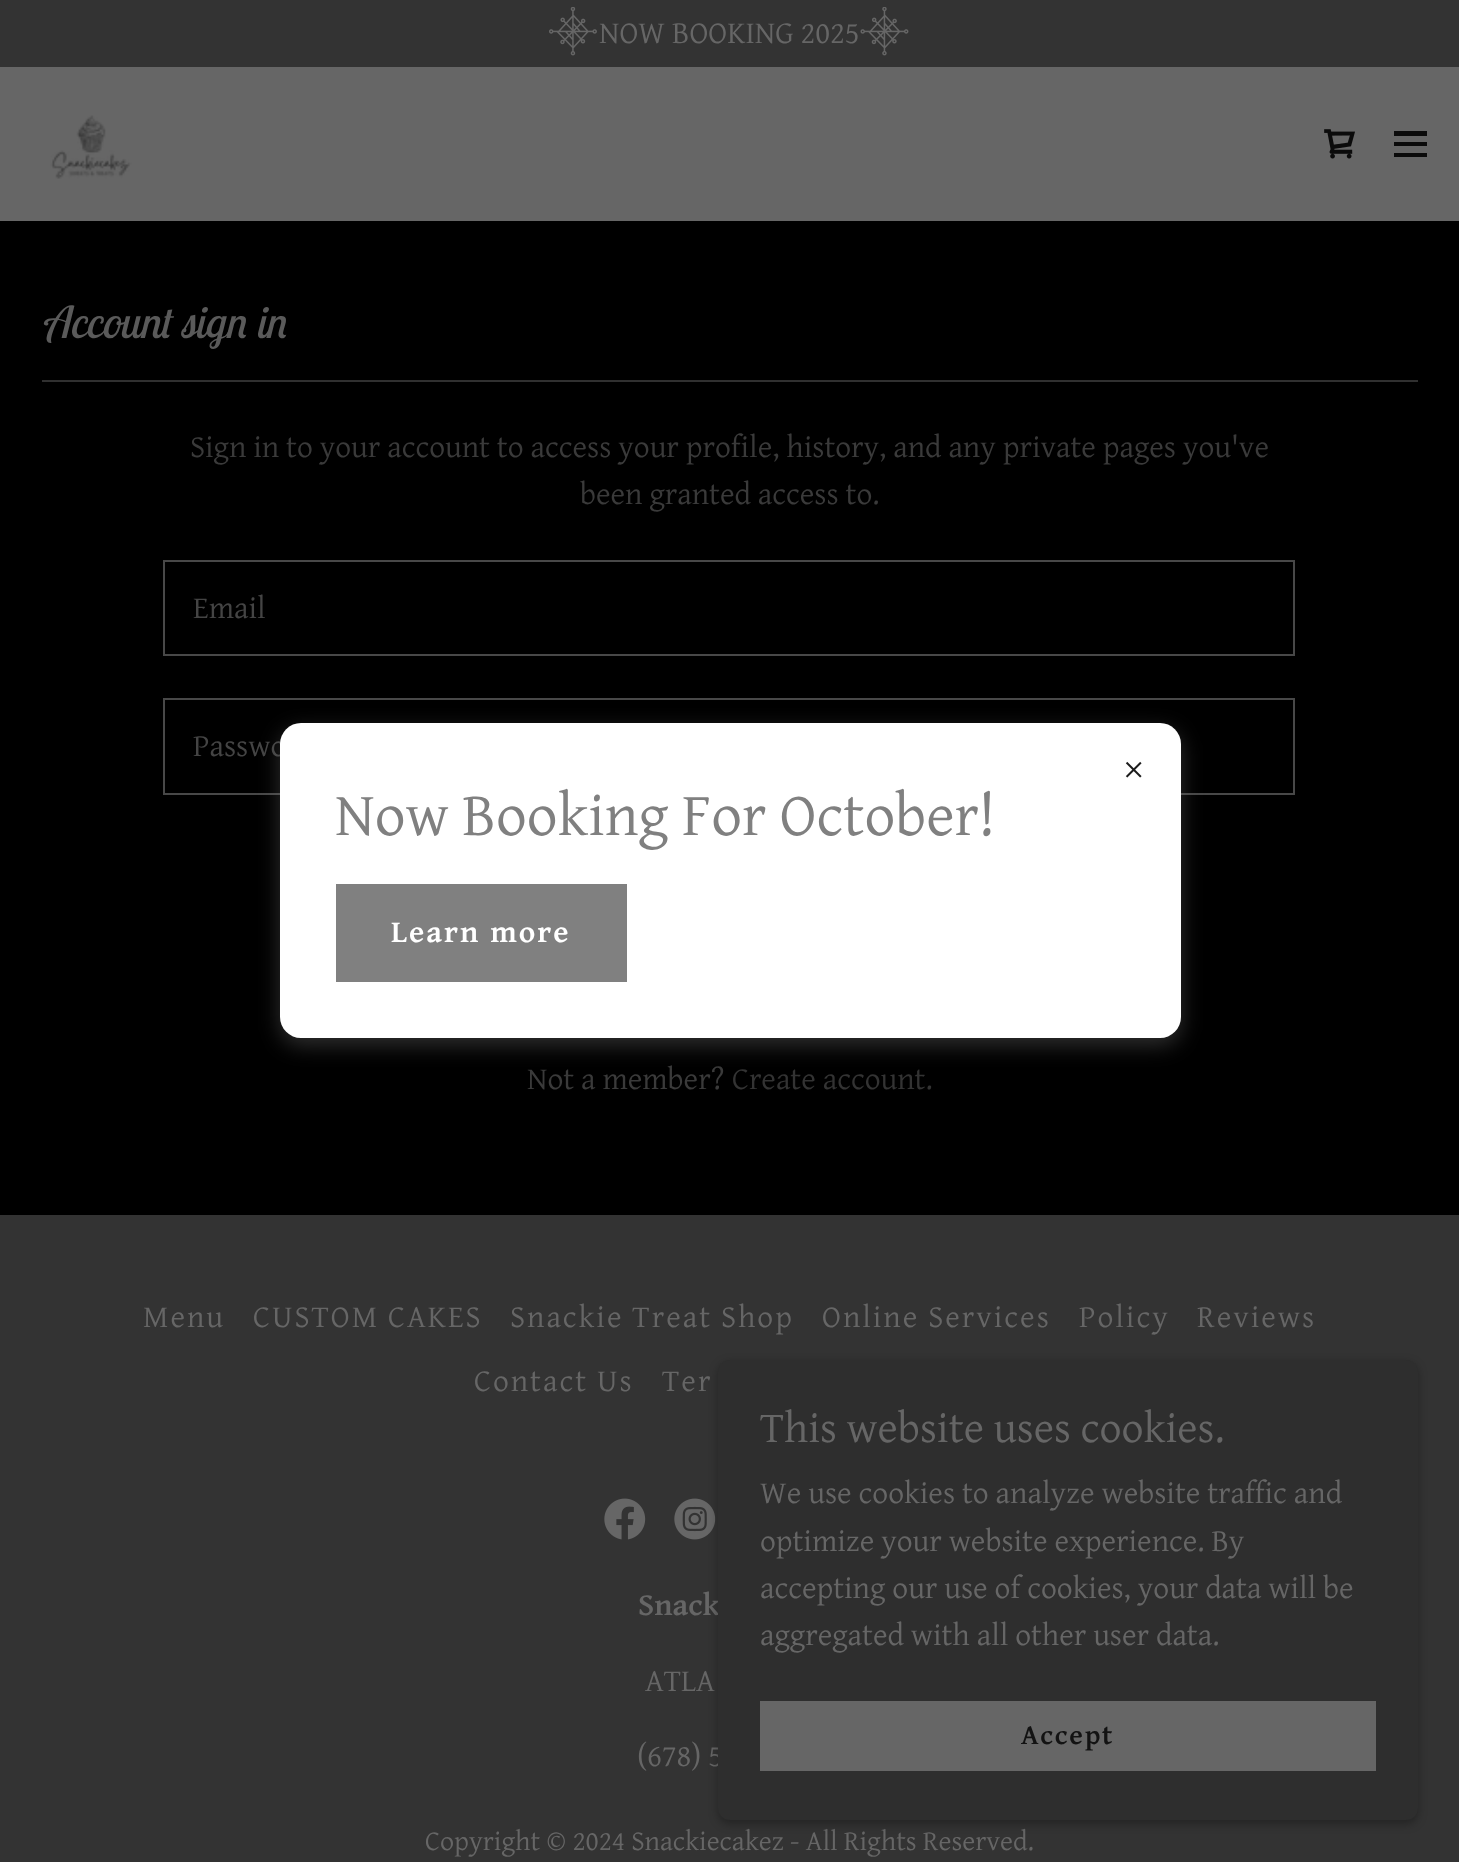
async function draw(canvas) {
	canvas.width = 1459;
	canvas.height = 1862;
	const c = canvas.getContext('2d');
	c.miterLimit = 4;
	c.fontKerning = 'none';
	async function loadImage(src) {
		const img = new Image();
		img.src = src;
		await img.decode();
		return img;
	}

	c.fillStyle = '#333';
	c.fillRect(0, 0, 1459, 1862);
	c.fillStyle = '#666';
	c.fillRect(0, 67, 1459, 154);
	c.drawImage(await loadImage('img1.png'), 549, 7, 48, 49);
	c.font = '31.5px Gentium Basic';
	c.fillText('NOW BOOKING 2025', 599, 43);
	c.drawImage(await loadImage('img2.png'), 860, 7, 49, 49);
	c.drawImage(await loadImage('img3.png'), 50, 115, 82, 64);
	c.drawImage(await loadImage('img4.png'), 1324, 129, 31, 30);
	for (const [x, y, w, h, color] of [
		[1394, 131, 33, 5, '#0b0b0b'],
		[1394, 142, 33, 4, '#0b0b0b'],
		[1394, 153, 33, 4, '#0b0b0b'],
		[0, 221, 1459, 994, '#000'],
	]) {
		c.fillStyle = color;
		c.fillRect(x, y, w, h);
	}
	c.font = 'italic 43.75px Lobster Two';
	c.fillStyle = '#5a5a5a';
	c.fillText('Account sign in', 42, 338);
	c.fillStyle = '#303030';
	c.fillRect(42, 380, 1376, 2);
	c.font = '31.5px Gentium Basic';
	c.fillStyle = '#3a3a3a';
	c.fillText('Sign in to your account to access your profile, history, and any private pages you\'ve', 190, 457);
	c.fillText('been granted access to.', 580, 504);
	c.strokeStyle = '#484848';
	c.lineWidth = 2;
	c.strokeRect(164, 561, 1130, 94);
	c.fillStyle = '#444';
	c.fillText('Email', 193, 618);
	c.strokeRect(164, 699, 1130, 95);
	c.fillText('Passwo', 193, 756);
	c.fillStyle = '#3a3a3a';
	c.fillText('Not a member?', 527, 1089);
	c.fillStyle = '#333';
	c.fillText('Create account.', 732, 1089);
	c.fillStyle = '#75757566';
	c.filter = 'blur(10.5px)';
	c.beginPath();
	c.roundRect(280, 730, 901, 315, 21);
	c.fill();
	c.filter = 'none';
	c.fillStyle = '#fff';
	c.beginPath();
	c.roundRect(280, 723, 901, 315, 21);
	c.fill();
	c.drawImage(await loadImage('img5.png'), 1125, 761, 17, 17);
	c.font = '61.25px Gentium Basic';
	c.fillStyle = '#808080';
	c.fillText('Now Booking For October!', 335, 835);
	c.fillRect(336, 884, 291, 98);
	c.letterSpacing = '2px';
	c.font = 'bold 31.5px Gentium Basic';
	c.fillStyle = '#fff';
	c.fillText('Learn more', 391, 942);
	c.font = '31.5px Gentium Basic';
	c.fillStyle = '#666';
	for (const [text, x, y] of [
		['Menu', 143, 1327],
		['CUSTOM CAKES', 253, 1327],
		['Snackie Treat Shop', 510, 1327],
		['Online Services', 822, 1327],
		['Policy', 1079, 1327],
		['Reviews', 1197, 1327],
		['Contact Us', 474, 1391],
		['Ter', 662, 1391],
	]) {
		c.fillText(text, x, y);
	}
	c.drawImage(await loadImage('img6.png'), 604, 1498, 42, 42);
	c.drawImage(await loadImage('img7.png'), 674, 1498, 42, 42);
	c.letterSpacing = '0px';
	c.font = 'bold 31.5px Gentium Basic';
	c.fillText('Snack', 638, 1615);
	c.font = '31.5px Gentium Basic';
	c.fillText('ATLA', 645, 1691);
	c.fillText('(678) 5', 637, 1766);
	c.font = '28px Gentium Basic';
	c.fillText('Copyright © 2024 Snackiecakez - All Rights Reserved.', 425, 1850);
	c.fillStyle = '#0000004d';
	c.filter = 'blur(5px)';
	c.beginPath();
	c.roundRect(718, 1363, 700, 461, 12);
	c.fill();
	c.filter = 'none';
	c.fillStyle = '#2e2e2e';
	c.beginPath();
	c.roundRect(718, 1360, 700, 460, 12);
	c.fill();
	c.font = '43.75px Gentium Basic';
	c.fillStyle = '#666';
	c.fillText('This website uses cookies.', 760, 1442);
	c.font = '31.5px Gentium Basic';
	for (const [text, x, y] of [
		['We use cookies to analyze website traffic and', 760, 1503],
		['optimize your website experience. By', 760, 1551],
		['accepting our use of cookies, your data will be', 760, 1598],
		['aggregated with all other user data.', 760, 1645],
	]) {
		c.fillText(text, x, y);
	}
	c.fillRect(760, 1701, 616, 70);
	c.letterSpacing = '1.75px';
	c.font = 'bold 28px Gentium Basic';
	c.fillStyle = '#131313';
	c.fillText('Accept', 1021, 1744);
}

draw(document.querySelector('canvas'));
